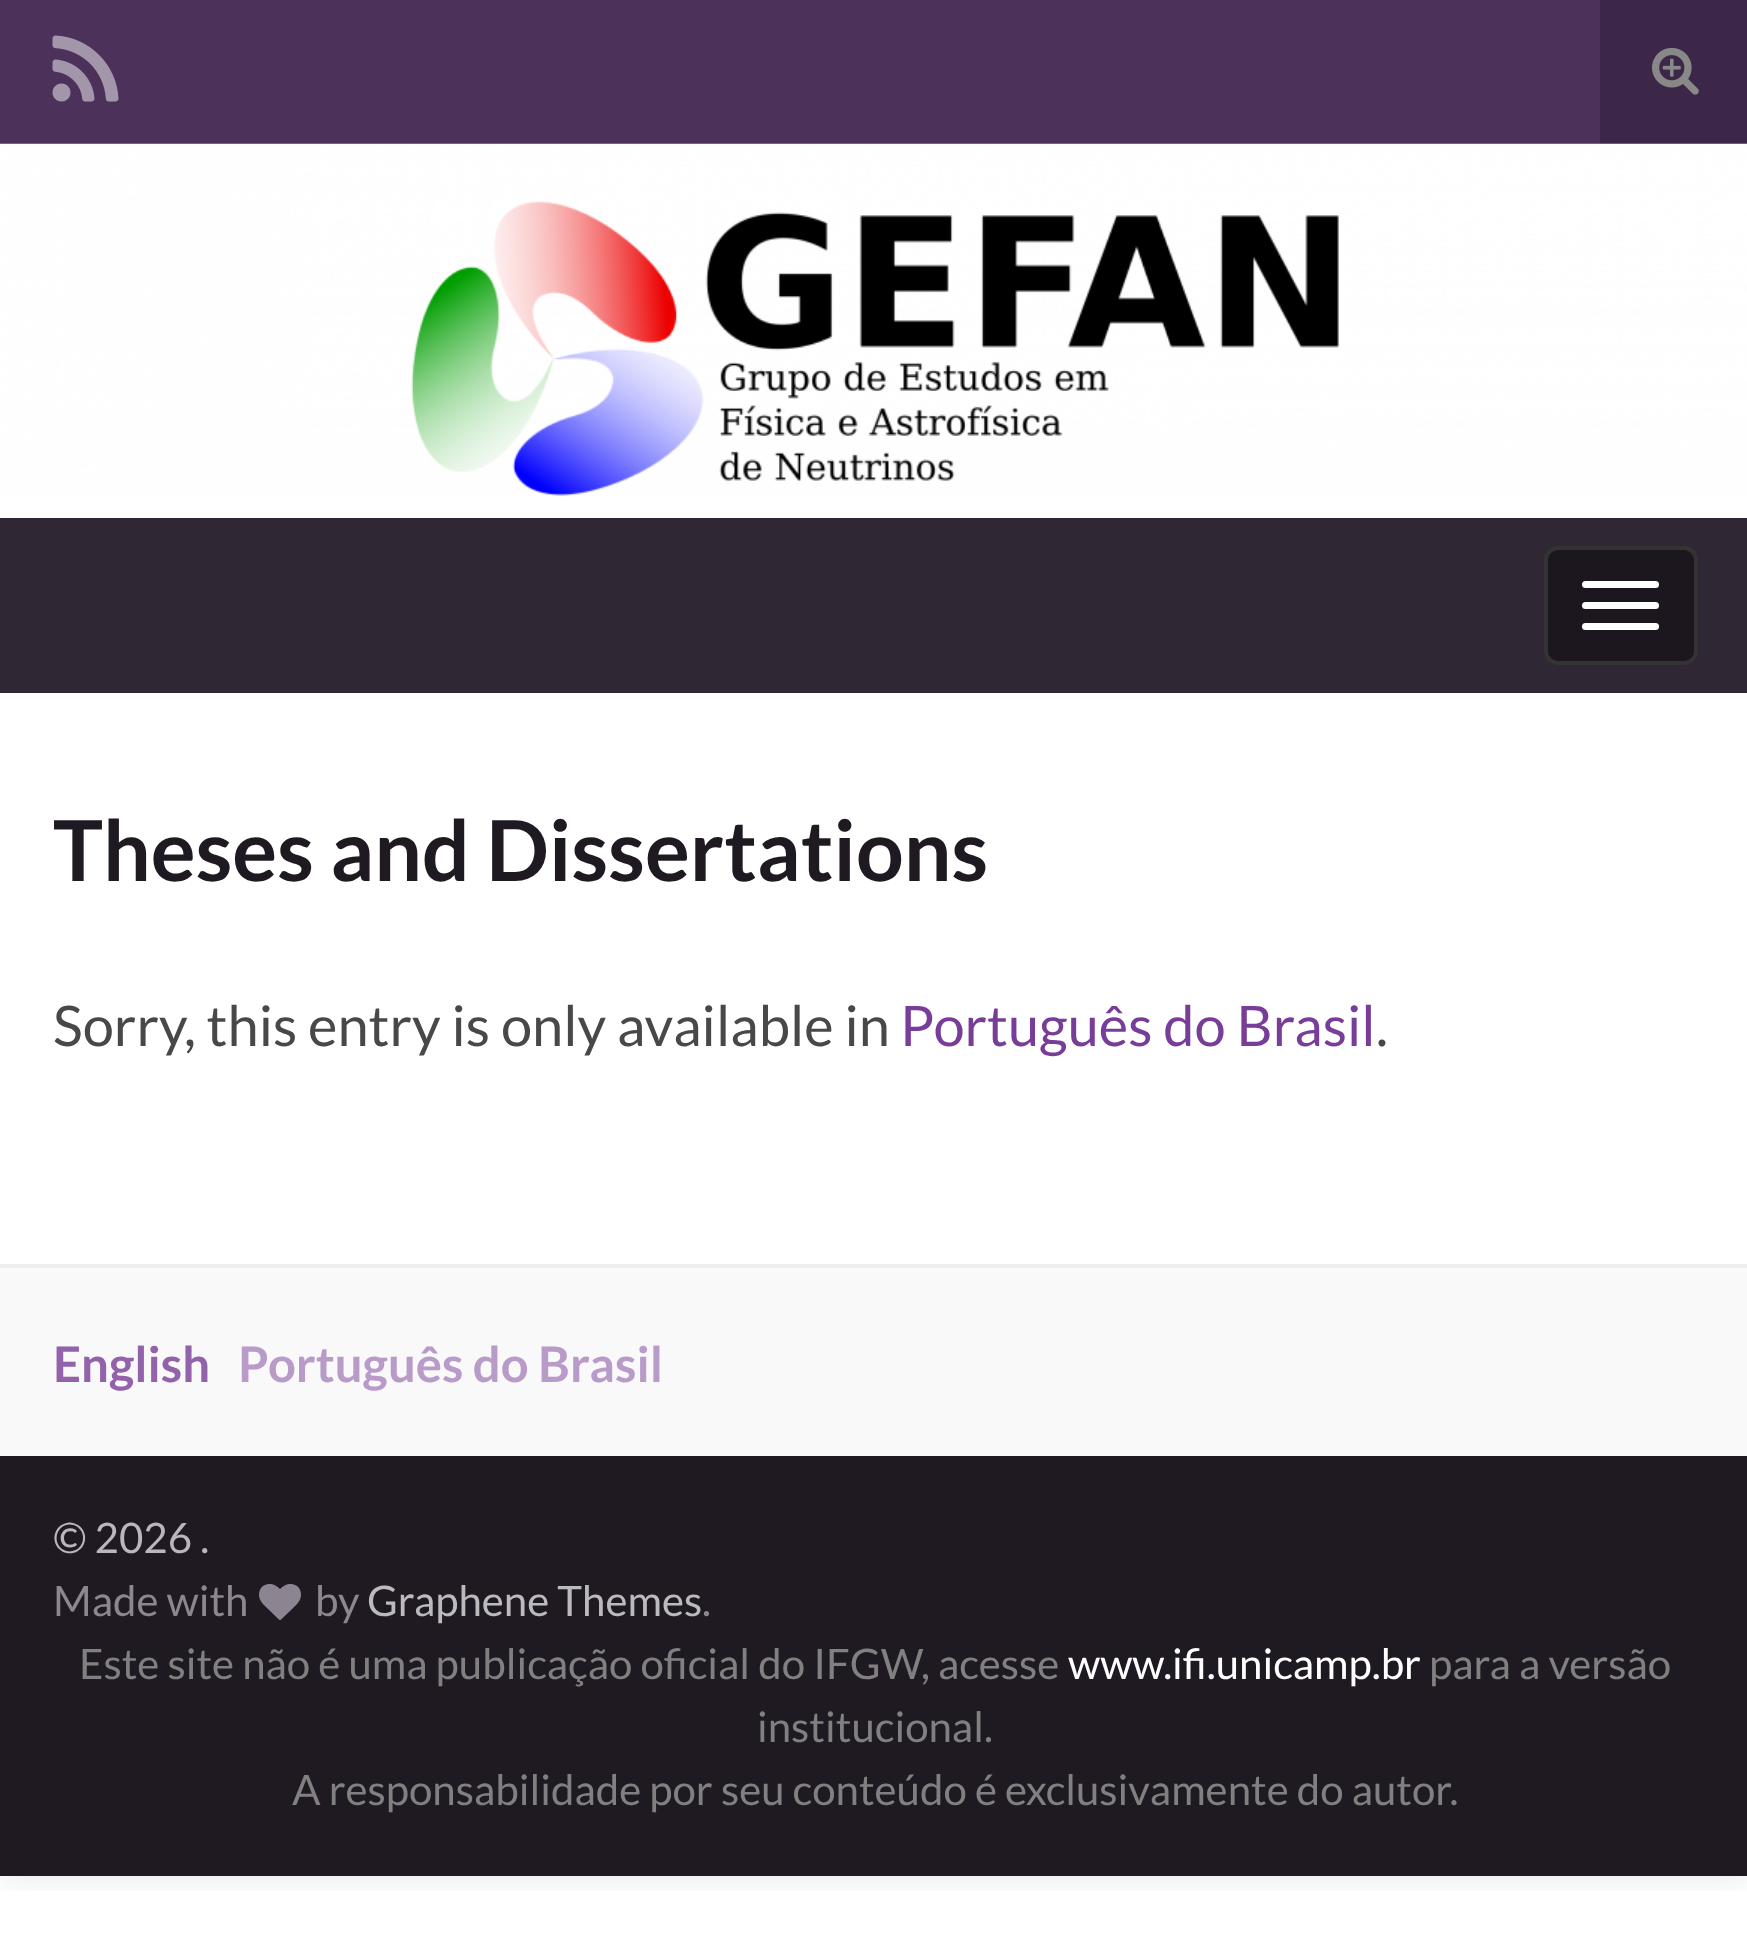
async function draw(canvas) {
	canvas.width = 1747;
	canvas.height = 1946;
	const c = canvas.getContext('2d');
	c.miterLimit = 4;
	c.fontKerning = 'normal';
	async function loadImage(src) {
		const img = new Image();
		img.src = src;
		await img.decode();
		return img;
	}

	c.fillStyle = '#fff';
	c.fillRect(0, 0, 1747, 1946);
	c.save();
	c.beginPath();
	c.rect(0, 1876, 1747, 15);
	c.clip();
	c.fillStyle = '#0000001a';
	c.filter = 'blur(17.5px)';
	c.beginPath();
	c.rect(0, 0, 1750, 1876);
	c.fill();
	c.filter = 'none';
	c.restore();
	c.fillStyle = '#4c315a';
	c.fillRect(0, 0, 1600, 144);
	c.drawImage(await loadImage('img1.png'), 52, 35, 67, 67);
	c.fillStyle = '#3d2748';
	c.fillRect(1600, 0, 147, 144);
	c.drawImage(await loadImage('img2.png'), 1652, 47, 47, 48);
	c.drawImage(await loadImage('img3.png'), 0, 143, 1747, 353);
	c.fillStyle = '#2f2733';
	c.fillRect(0, 518, 1747, 175);
	c.fillStyle = '#1c171f';
	c.beginPath();
	c.roundRect(1546, 548, 150, 115, 12);
	c.fill();
	c.strokeStyle = '#333';
	c.lineWidth = 4;
	c.stroke();
	c.fillStyle = '#fff';
	c.beginPath();
	c.roundRect(1582, 581, 77, 7, 3.5);
	c.fill();
	c.beginPath();
	c.roundRect(1582, 602, 77, 7, 3.5);
	c.fill();
	c.beginPath();
	c.roundRect(1582, 623, 77, 7, 3.5);
	c.fill();
	c.font = 'bold 84px Lato';
	c.fillStyle = '#1f1a22';
	c.fillText('Theses and Dissertations', 53, 881);
	c.font = '56px Lato';
	c.fillStyle = '#4a474b';
	c.fillText('Sorry, this entry is only available in', 53, 1046);
	c.fillStyle = '#783d98';
	c.fillText('Português do Brasil', 900, 1046);
	c.fillStyle = '#4a474b';
	c.fillText('.', 1376, 1046);
	c.fillStyle = '#f9f9f9';
	c.fillRect(0, 1268, 1747, 188);
	c.fillStyle = '#eee';
	c.fillRect(0, 1264, 1747, 4);
	c.font = 'bold 49px Lato';
	c.fillStyle = '#9263ab';
	c.fillText('English', 53, 1382);
	c.fillStyle = '#b99bc9';
	c.fillText('Português do Brasil', 238, 1382);
	c.fillStyle = '#1f1a22';
	c.fillRect(0, 1456, 1747, 420);
	c.font = '42px Lato';
	c.fillStyle = '#bcb4c1';
	c.fillText('© 2026 .', 53, 1553);
	c.fillStyle = '#8d8691';
	c.fillText('Made with', 53, 1616);
	c.drawImage(await loadImage('img4.png'), 259, 1584, 42, 36);
	c.fillText('by', 315, 1616);
	c.fillStyle = '#bcbabd';
	c.fillText('Graphene Themes', 367, 1616);
	c.fillStyle = '#8d8691';
	c.fillText('.', 702, 1616);
	c.fillStyle = '#808080';
	c.fillText('Este site não é uma publicação oficial do IFGW, acesse', 79, 1679);
	c.fillStyle = '#fff';
	c.fillText('www.ifi.unicamp.br', 1068, 1679);
	c.fillStyle = '#808080';
	for (const [text, x, y] of [
		['para a versão', 1429, 1679],
		['institucional.', 757, 1742],
		['A responsabilidade por seu conteúdo é exclusivamente do autor.', 292, 1805],
	]) {
		c.fillText(text, x, y);
	}
}

draw(document.querySelector('canvas'));
